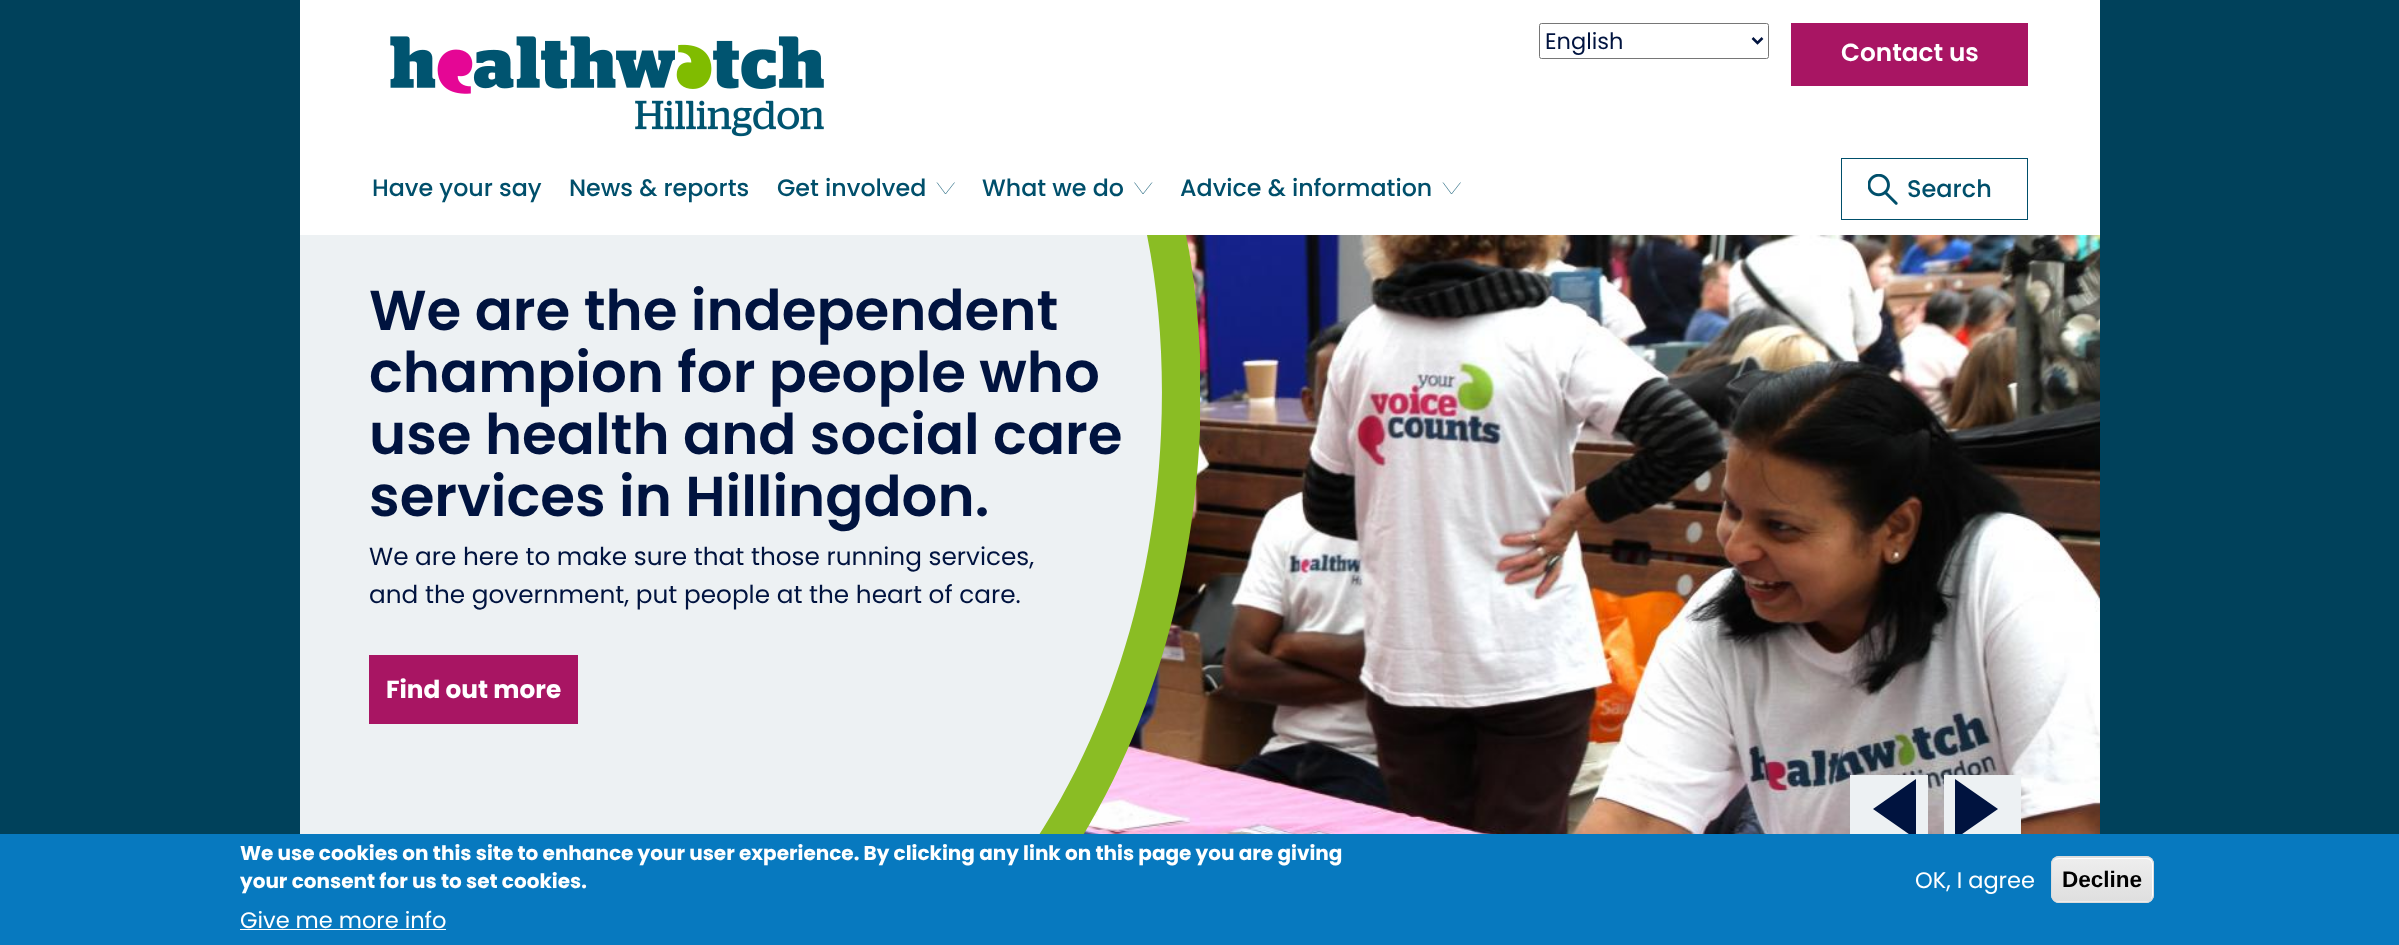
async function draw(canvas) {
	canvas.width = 2399;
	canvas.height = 945;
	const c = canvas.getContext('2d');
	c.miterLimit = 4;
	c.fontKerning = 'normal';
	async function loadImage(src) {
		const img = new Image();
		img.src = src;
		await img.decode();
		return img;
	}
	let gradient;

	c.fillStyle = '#00415b';
	c.fillRect(0, 0, 2399, 945);
	c.fillStyle = '#fff';
	c.fillRect(300, 0, 1800, 235);
	c.drawImage(await loadImage('img1.png'), 390, 36, 434, 101);
	c.beginPath();
	c.roundRect(1539.5, 23.5, 229, 35, 2);
	c.strokeStyle = '#767676';
	c.stroke();
	c.beginPath();
	c.moveTo(1752.5, 38);
	c.lineTo(1757.5, 43);
	c.lineTo(1762.5, 38);
	c.strokeStyle = '#00133f';
	c.lineWidth = 2.5;
	c.stroke();
	c.font = '22.5px Poppins';
	c.fillStyle = '#00133f';
	c.fillText('English', 1545, 49);
	c.fillStyle = '#a81563';
	c.fillRect(1791, 23, 237, 63);
	c.font = '600 24.75px Poppins';
	c.fillStyle = '#fff';
	c.fillText('Contact us', 1841, 61);
	c.font = '500 23.75px Poppins';
	c.fillStyle = '#004f6b';
	for (const [text, x, y] of [
		['Have your say', 372, 196],
		['News & reports', 569, 196],
		['Get involved', 777, 196],
	]) {
		c.fillText(text, x, y);
	}
	c.beginPath();
	c.moveTo(937, 182.5);
	c.lineTo(945.5, 194);
	c.lineTo(954.5, 182.5);
	c.strokeStyle = '#004f6b';
	c.lineWidth = 0.6;
	c.stroke();
	c.fillText('What we do', 982, 196);
	c.beginPath();
	c.moveTo(1134.5, 182.5);
	c.lineTo(1143, 194);
	c.lineTo(1152, 182.5);
	c.stroke();
	c.fillText('Advice & information', 1180, 196);
	c.beginPath();
	c.moveTo(1443, 182.5);
	c.lineTo(1451.5, 194);
	c.lineTo(1460.5, 182.5);
	c.stroke();
	c.lineWidth = 1;
	c.strokeRect(1841.5, 158.5, 186, 61);
	c.drawImage(await loadImage('img2.png'), 1868, 174, 30, 31);
	c.font = '500 24px Poppins';
	c.fillText('Search', 1907, 197);
	c.drawImage(await loadImage('img3.png'), 1084, 235, 1016, 599);
	c.save();
	c.beginPath();
	c.rect(300, 235, 900, 688);
	c.clip();
	c.fillStyle = '#edf1f3';
	c.beginPath();
	c.moveTo(1167, 235);
	c.lineTo(285, 235);
	c.lineTo(285, 922);
	c.lineTo(999, 922);
	c.bezierCurveTo(1114, 784, 1182, 601, 1181, 385);
	c.bezierCurveTo(1181, 335, 1177, 284, 1167, 235);
	c.closePath();
	c.fill();
	c.fillStyle = '#8abd24';
	c.beginPath();
	c.moveTo(1201, 385);
	c.bezierCurveTo(1200, 335, 1196, 284, 1186, 235);
	c.lineTo(1147, 235);
	c.bezierCurveTo(1160, 300, 1164, 367, 1161, 434);
	c.bezierCurveTo(1153, 613, 1093, 786, 974, 922);
	c.lineTo(1023, 922);
	c.bezierCurveTo(1146, 769, 1201, 579, 1201, 385);
	c.closePath();
	c.fill();
	c.restore();
	c.font = '600 56.25px Poppins';
	c.fillStyle = '#00133f';
	for (const [text, x, y] of [
		['We are the independent', 369, 330],
		['champion for people who', 369, 392],
		['use health and social care', 369, 454],
		['services in Hillingdon.', 369, 516],
	]) {
		c.fillText(text, x, y);
	}
	c.font = '24.75px Poppins';
	c.fillText('We are here to make sure that those running services,', 369, 565);
	c.fillText('and the government, put people at the heart of care.', 369, 603);
	c.fillStyle = '#a81563';
	c.fillRect(369, 655, 209, 69);
	c.font = 'bold 24.75px Poppins';
	c.fillStyle = '#fff';
	c.fillText('Find out more', 386, 698);
	c.fillStyle = '#edf1f3';
	c.fillRect(1850, 775, 78, 59);
	c.fillStyle = '#00133f';
	c.beginPath();
	c.moveTo(1873, 809);
	c.lineTo(1916, 779);
	c.lineTo(1916, 839);
	c.closePath();
	c.fill();
	c.fillStyle = '#edf1f3';
	c.fillRect(1944, 775, 77, 59);
	c.fillStyle = '#00133f';
	c.beginPath();
	c.moveTo(1998, 809);
	c.lineTo(1955, 779);
	c.lineTo(1955, 839);
	c.closePath();
	c.fill();
	c.fillStyle = '#0779bf';
	c.fillRect(0, 834, 2399, 111);
	c.font = 'bold 20px Poppins';
	c.fillStyle = '#fff';
	c.fillText('We use cookies on this site to enhance your user experience. By clicking any link on this page you are giving', 240, 860);
	c.fillText('your consent for us to set cookies.', 240, 888);
	c.font = '22.5px Poppins';
	c.fillText('Give me more info', 240, 928);
	c.fillRect(240, 929, 206, 1);
	c.fillText('OK, I agree', 1915, 888);
	c.save();
	c.beginPath();
	c.roundRect(2051, 856, 103, 47, 8);
	c.clip();
	gradient = c.createLinearGradient(2103, 814, 2103, 858);
	gradient.addColorStop(0.05, '#ededed');
	gradient.addColorStop(1, '#dfdfdf');
	c.fillStyle = gradient;
	c.fillRect(2051, 856, 103, 2);
	gradient = c.createLinearGradient(2103, 858, 2103, 901);
	gradient.addColorStop(0.05, '#ededed');
	gradient.addColorStop(1, '#dfdfdf');
	c.fillStyle = gradient;
	c.fillRect(2051, 858, 103, 43);
	gradient = c.createLinearGradient(2103, 901, 2103, 945);
	gradient.addColorStop(0.05, '#ededed');
	gradient.addColorStop(1, '#dfdfdf');
	c.fillStyle = gradient;
	c.fillRect(2051, 901, 103, 2);
	c.restore();
	c.beginPath();
	c.moveTo(2059, 859);
	c.lineTo(2146, 859);
	c.bezierCurveTo(2150, 859, 2152, 862, 2152, 865);
	c.lineTo(2152, 896);
	c.lineTo(2151, 899);
	c.bezierCurveTo(2152, 898, 2153, 897, 2153, 895);
	c.lineTo(2153, 864);
	c.bezierCurveTo(2153, 861, 2150, 858, 2147, 858);
	c.lineTo(2059, 858);
	c.bezierCurveTo(2057, 858, 2055, 859, 2054, 861);
	c.bezierCurveTo(2055, 860, 2057, 859, 2059, 859);
	c.closePath();
	c.fill();
	c.beginPath();
	c.roundRect(2051.5, 856.5, 102, 46, 7.5);
	c.strokeStyle = '#dcdcdc';
	c.stroke();
	c.font = 'bold 22.5px Liberation Sans';
	c.fillStyle = '#000';
	c.fillText('Decline', 2062, 887);
}

draw(document.querySelector('canvas'));
